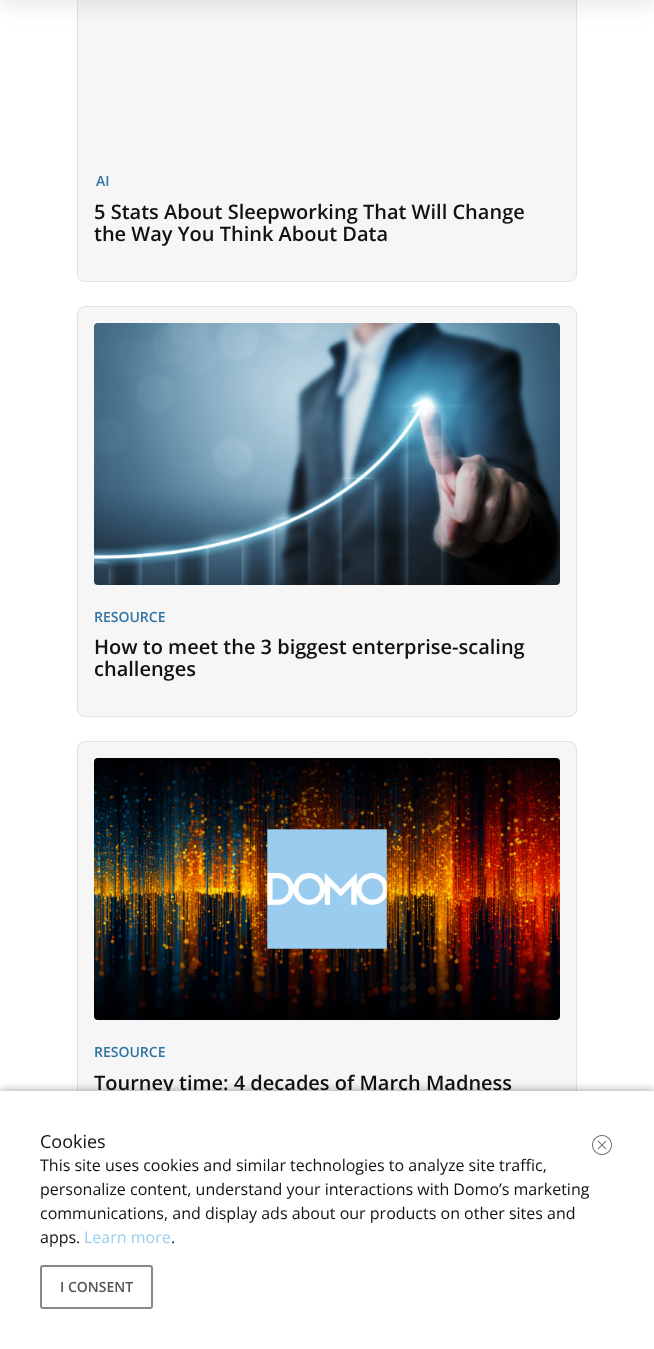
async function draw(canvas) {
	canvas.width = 654;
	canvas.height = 1349;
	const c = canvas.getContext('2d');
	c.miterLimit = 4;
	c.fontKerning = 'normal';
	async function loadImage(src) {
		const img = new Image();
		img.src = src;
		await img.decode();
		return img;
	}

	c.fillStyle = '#fff';
	c.fillRect(0, 0, 654, 1349);
	c.fillStyle = '#f6f6f6';
	c.beginPath();
	c.roundRect(77.5, -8.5, 499, 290, 7.5);
	c.fill();
	c.strokeStyle = '#dce4ea';
	c.stroke();
	c.fillStyle = '#00000014';
	c.filter = 'blur(10px)';
	c.beginPath();
	c.rect(0, -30, 654, 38);
	c.fill();
	c.filter = 'none';
	c.font = '600 14px Open Sans';
	c.fillStyle = '#2f74a3';
	c.fillText('AI', 96, 186);
	c.font = '600 20px Open Sans';
	c.fillStyle = '#111';
	c.fillText('5 Stats About Sleepworking That Will Change', 94, 219);
	c.fillText('the Way You Think About Data', 94, 241);
	c.fillStyle = '#f6f6f6';
	c.beginPath();
	c.roundRect(77.5, 306.5, 499, 410, 7.5);
	c.fill();
	c.stroke();
	c.drawImage(await loadImage('img1.png'), 94, 323, 466, 262);
	c.font = '600 14px Open Sans';
	c.fillStyle = '#2f74a3';
	c.fillText('RESOURCE', 94, 622);
	c.font = '600 20px Open Sans';
	c.fillStyle = '#111';
	c.fillText('How to meet the 3 biggest enterprise-scaling', 94, 654);
	c.fillText('challenges', 94, 676);
	c.fillStyle = '#f6f6f6';
	c.beginPath();
	c.roundRect(77.5, 741.5, 499, 411, 7.5);
	c.fill();
	c.stroke();
	c.drawImage(await loadImage('img2.png'), 94, 758, 466, 262);
	c.font = '600 14px Open Sans';
	c.fillStyle = '#2f74a3';
	c.fillText('RESOURCE', 94, 1057);
	c.font = '600 20px Open Sans';
	c.fillStyle = '#111';
	c.fillText('Tourney time: 4 decades of March Madness', 94, 1090);
	c.fillStyle = '#00000066';
	c.filter = 'blur(5px)';
	c.beginPath();
	c.rect(0, 1091, 654, 258);
	c.fill();
	c.filter = 'none';
	c.fillStyle = '#fff';
	c.fillRect(0, 1091, 654, 258);
	c.font = '18px Open Sans';
	c.fillStyle = '#111';
	c.fillText('Cookies', 40, 1148);
	c.font = '16px Open Sans';
	for (const [text, x, y] of [
		['This site uses cookies and similar technologies to analyze site traffic,', 40, 1171],
		['personalize content, understand your interactions with Domo’s marketing', 40, 1195],
		['communications, and display ads about our products on other sites and', 40, 1219],
		['apps.', 40, 1243],
	]) {
		c.fillText(text, x, y);
	}
	c.fillStyle = '#9ce';
	c.fillText('Learn more', 84, 1243);
	c.fillStyle = '#111';
	c.fillText('.', 171, 1243);
	c.beginPath();
	c.roundRect(41, 1266, 111, 42, 2);
	c.strokeStyle = '#888';
	c.lineWidth = 2;
	c.stroke();
	c.font = '600 14px Open Sans';
	c.fillStyle = '#555';
	c.fillText('I CONSENT', 60, 1292);
	c.drawImage(await loadImage('img3.png'), 592, 1135, 20, 20);
}

draw(document.querySelector('canvas'));
